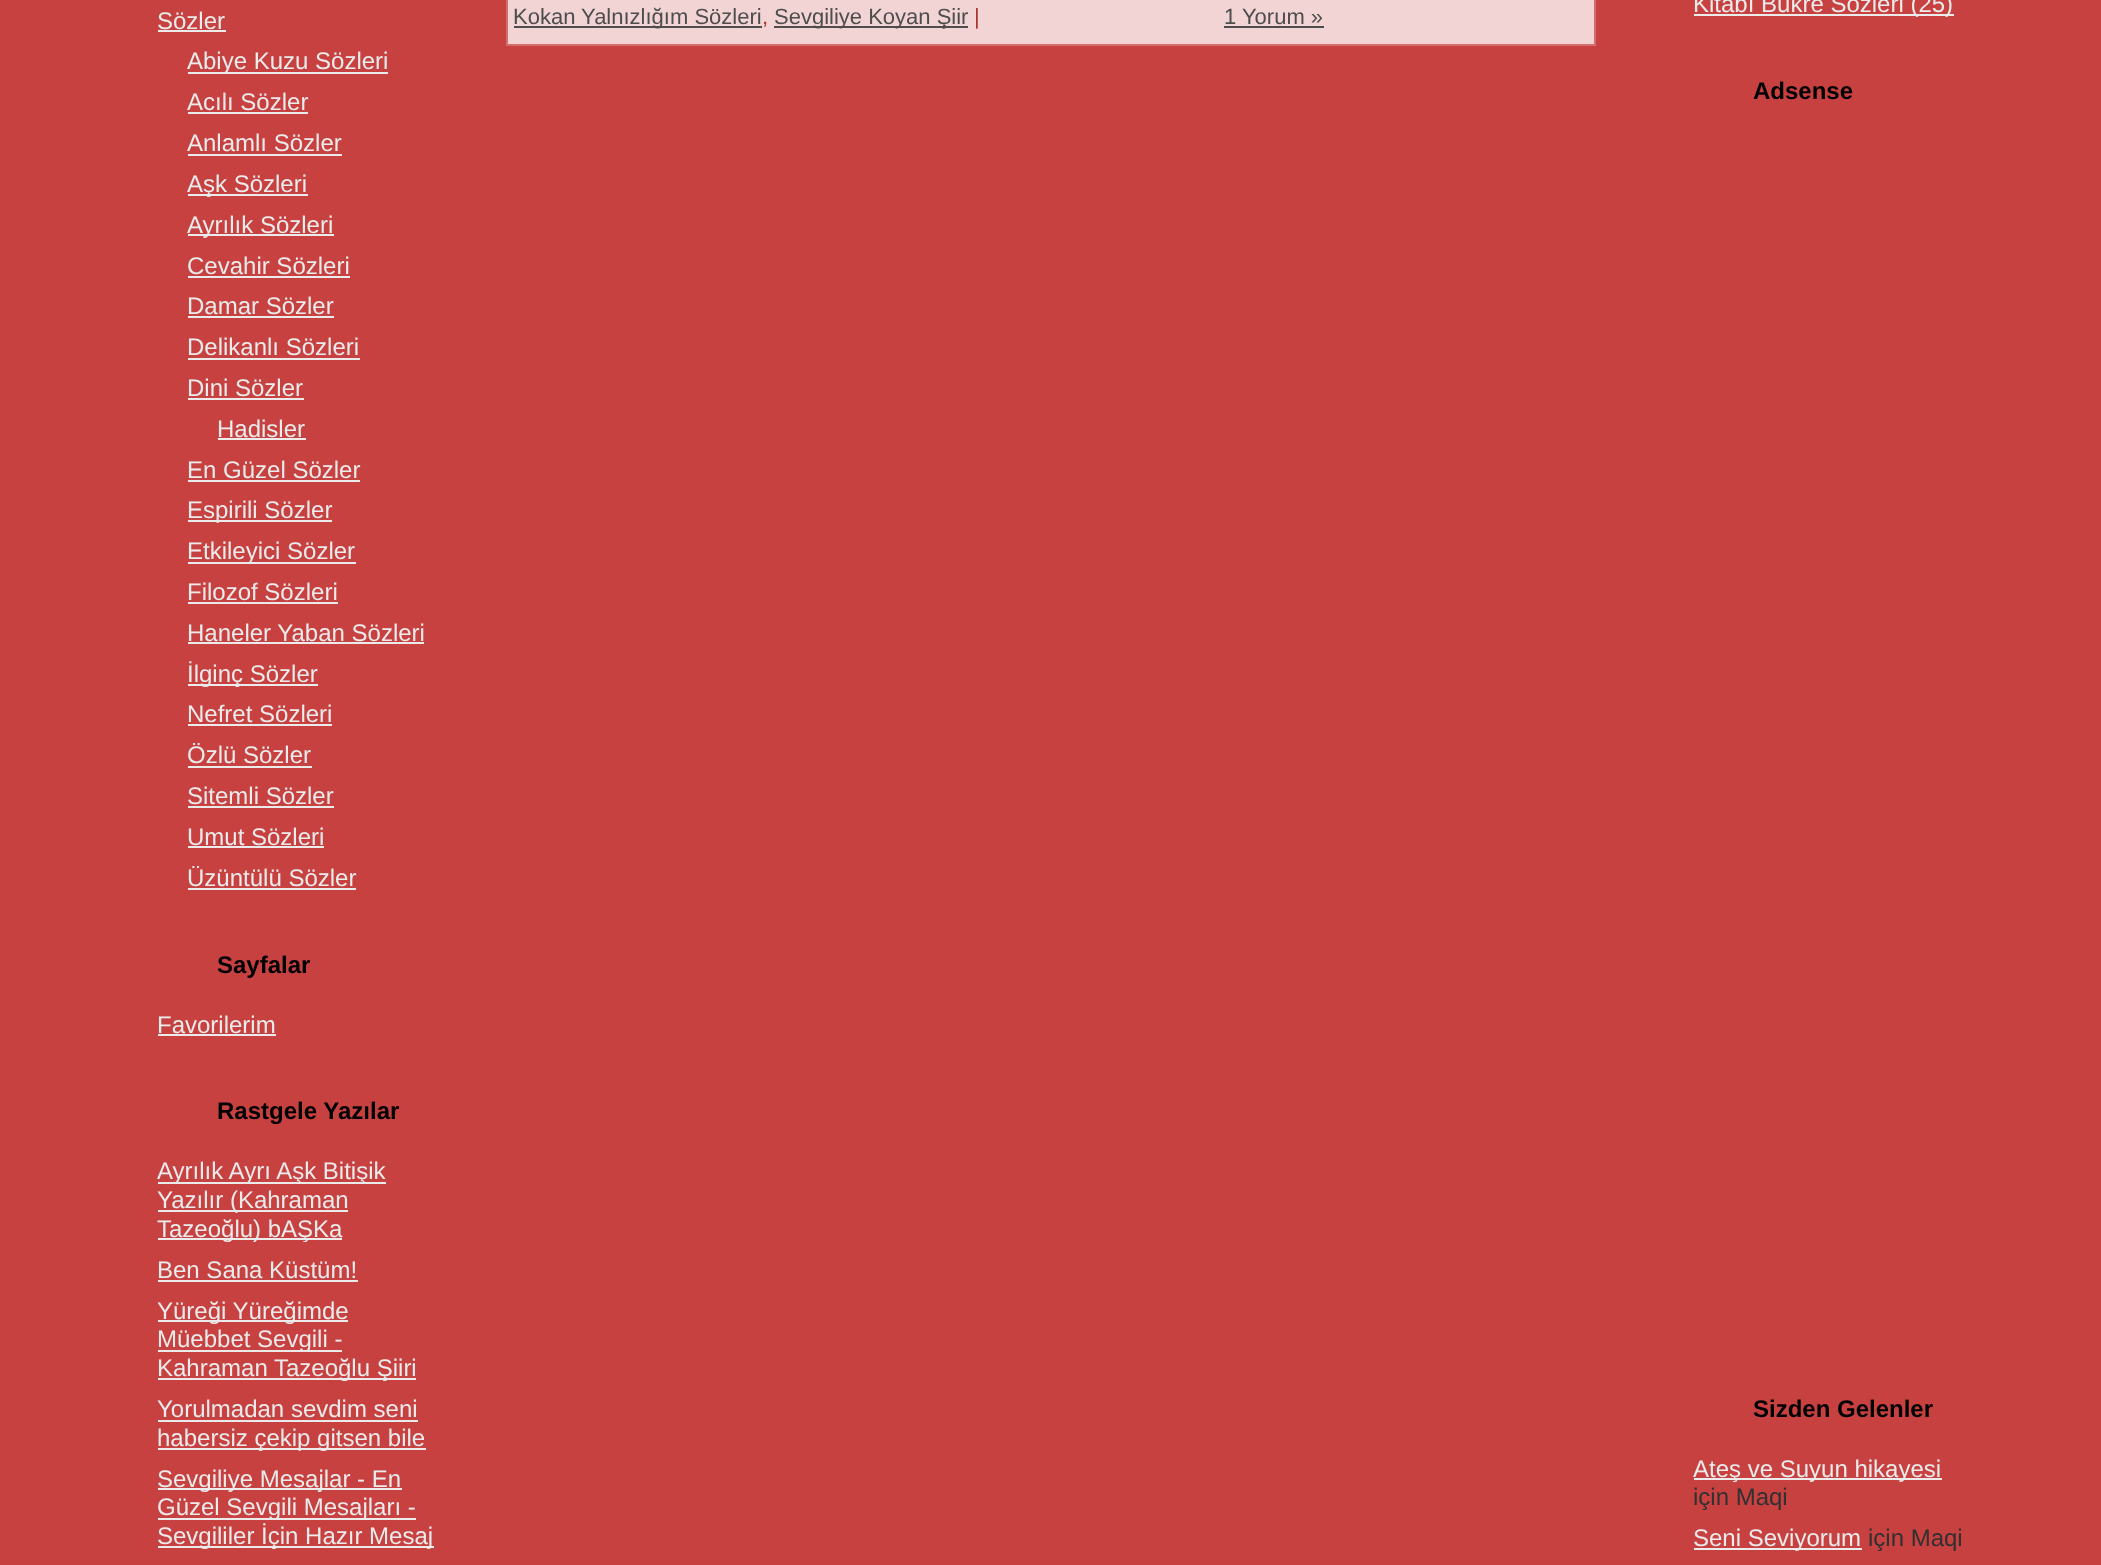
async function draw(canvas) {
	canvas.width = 2101;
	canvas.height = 1565;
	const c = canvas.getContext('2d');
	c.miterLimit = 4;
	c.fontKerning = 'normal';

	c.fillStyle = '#c84141';
	c.fillRect(0, 0, 2101, 1565);
	c.font = '24px Liberation Sans';
	c.fillStyle = '#ebebeb';
	c.fillText('Sözler', 157, 29);
	c.fillRect(158, 30, 68, 2);
	c.fillRect(188, 72, 200, 2);
	c.fillText('Abiye Kuzu Sözleri', 187, 69);
	c.fillText('Acılı Sözler', 187, 110);
	c.fillRect(188, 112, 120, 2);
	c.fillText('Anlamlı Sözler', 187, 151);
	c.fillRect(188, 154, 154, 2);
	c.fillRect(188, 194, 120, 2);
	c.fillText('Aşk Sözleri', 187, 192);
	c.fillRect(188, 234, 146, 2);
	c.fillText('Ayrılık Sözleri', 187, 233);
	c.fillText('Cevahir Sözleri', 187, 274);
	c.fillRect(188, 276, 162, 2);
	c.fillText('Damar Sözler', 187, 314);
	c.fillRect(188, 316, 146, 2);
	c.fillText('Delikanlı Sözleri', 187, 355);
	c.fillRect(188, 358, 172, 2);
	c.fillText('Dini Sözler', 187, 396);
	c.fillRect(188, 398, 116, 2);
	c.fillText('Hadisler', 217, 437);
	c.fillRect(218, 438, 88, 2);
	c.fillText('En Güzel Sözler', 187, 478);
	c.fillRect(188, 480, 172, 2);
	c.fillRect(188, 520, 144, 2);
	c.fillText('Espirili Sözler', 187, 518);
	c.fillRect(188, 562, 168, 2);
	c.fillText('Etkileyici Sözler', 187, 559);
	c.fillText('Filozof Sözleri', 187, 600);
	c.fillRect(188, 602, 150, 2);
	c.fillText('Haneler Yaban Sözleri', 187, 641);
	c.fillRect(188, 642, 236, 2);
	c.fillRect(188, 684, 130, 2);
	c.fillText('İlginç Sözler', 187, 682);
	c.fillText('Nefret Sözleri', 187, 722);
	c.fillRect(188, 724, 144, 2);
	c.fillText('Özlü Sözler', 187, 763);
	c.fillRect(188, 766, 124, 2);
	c.fillText('Sitemli Sözler', 187, 804);
	c.fillRect(188, 806, 146, 2);
	c.fillText('Umut Sözleri', 187, 845);
	c.fillRect(188, 846, 136, 2);
	c.fillText('Üzüntülü Sözler', 187, 886);
	c.fillRect(188, 888, 168, 2);
	c.font = 'bold 24px Liberation Sans';
	c.fillStyle = '#000';
	c.fillText('Sayfalar', 217, 973);
	c.font = '24px Liberation Sans';
	c.fillStyle = '#ebebeb';
	c.fillText('Favorilerim', 157, 1033);
	c.fillRect(158, 1034, 118, 2);
	c.font = 'bold 24px Liberation Sans';
	c.fillStyle = '#000';
	c.fillText('Rastgele Yazılar', 217, 1119);
	c.fillStyle = '#ebebeb';
	c.fillRect(158, 1182, 228, 2);
	c.font = '24px Liberation Sans';
	c.fillText('Ayrılık Ayrı Aşk Bitişik', 157, 1179);
	c.fillRect(158, 1210, 190, 2);
	c.fillText('Yazılır (Kahraman', 157, 1208);
	c.fillRect(158, 1238, 184, 2);
	c.fillText('Tazeoğlu) bAŞKa', 157, 1237);
	c.fillText('Ben Sana Küstüm!', 157, 1278);
	c.fillRect(158, 1280, 200, 2);
	c.fillRect(158, 1320, 190, 2);
	c.fillText('Yüreği Yüreğimde', 157, 1319);
	c.fillRect(158, 1350, 184, 2);
	c.fillText('Müebbet Sevgili -', 157, 1347);
	c.fillRect(158, 1378, 258, 2);
	c.fillText('Kahraman Tazeoğlu Şiiri', 157, 1376);
	c.fillText('Yorulmadan sevdim seni', 157, 1417);
	c.fillRect(158, 1420, 260, 2);
	c.fillRect(158, 1448, 268, 2);
	c.fillText('habersiz çekip gitsen bile', 157, 1446);
	c.fillRect(158, 1488, 244, 2);
	c.fillText('Sevgiliye Mesajlar - En', 157, 1487);
	c.fillRect(158, 1518, 258, 2);
	c.fillText('Güzel Sevgili Mesajları -', 157, 1515);
	c.fillRect(158, 1546, 276, 2);
	c.fillText('Sevgililer İçin Hazır Mesaj', 157, 1544);
	c.fillStyle = '#f2d4d4';
	c.beginPath();
	c.rect(507, -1, 1088, 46);
	c.fill();
	c.strokeStyle = '#d56d6d';
	c.lineWidth = 2;
	c.stroke();
	c.fillStyle = '#4d4d4d';
	c.fillRect(514, 26, 248, 2);
	c.font = '22px Liberation Sans';
	c.fillText('Kokan Yalnızlığım Sözleri', 513, 24);
	c.fillStyle = '#ae3232';
	c.fillText(',', 762, 24);
	c.fillStyle = '#4d4d4d';
	c.fillRect(774, 26, 194, 2);
	c.fillText('Sevgiliye Koyan Şiir', 774, 24);
	c.fillStyle = '#ae3232';
	c.fillText('|', 974, 24);
	c.fillStyle = '#4d4d4d';
	c.fillText('1 Yorum »', 1224, 24);
	c.fillRect(1224, 26, 100, 2);
	c.fillStyle = '#ebebeb';
	c.fillRect(1694, 14, 260, 2);
	c.font = '24px Liberation Sans';
	c.fillText('Kitabı Bukre Sözleri (25)', 1693, 12);
	c.font = 'bold 24px Liberation Sans';
	c.fillStyle = '#000';
	c.fillText('Adsense', 1753, 99);
	c.fillText('Sizden Gelenler', 1753, 1417);
	c.fillStyle = '#ebebeb';
	c.fillRect(1694, 1478, 248, 2);
	c.font = '24px Liberation Sans';
	c.fillText('Ateş ve Suyun hikayesi', 1693, 1477);
	c.fillStyle = '#303030';
	c.fillText('için Maqi', 1693, 1505);
	c.fillStyle = '#ebebeb';
	c.fillRect(1694, 1548, 168, 2);
	c.fillText('Seni Seviyorum', 1693, 1546);
	c.fillStyle = '#303030';
	c.fillText('için Maqi', 1868, 1546);
}

draw(document.querySelector('canvas'));
